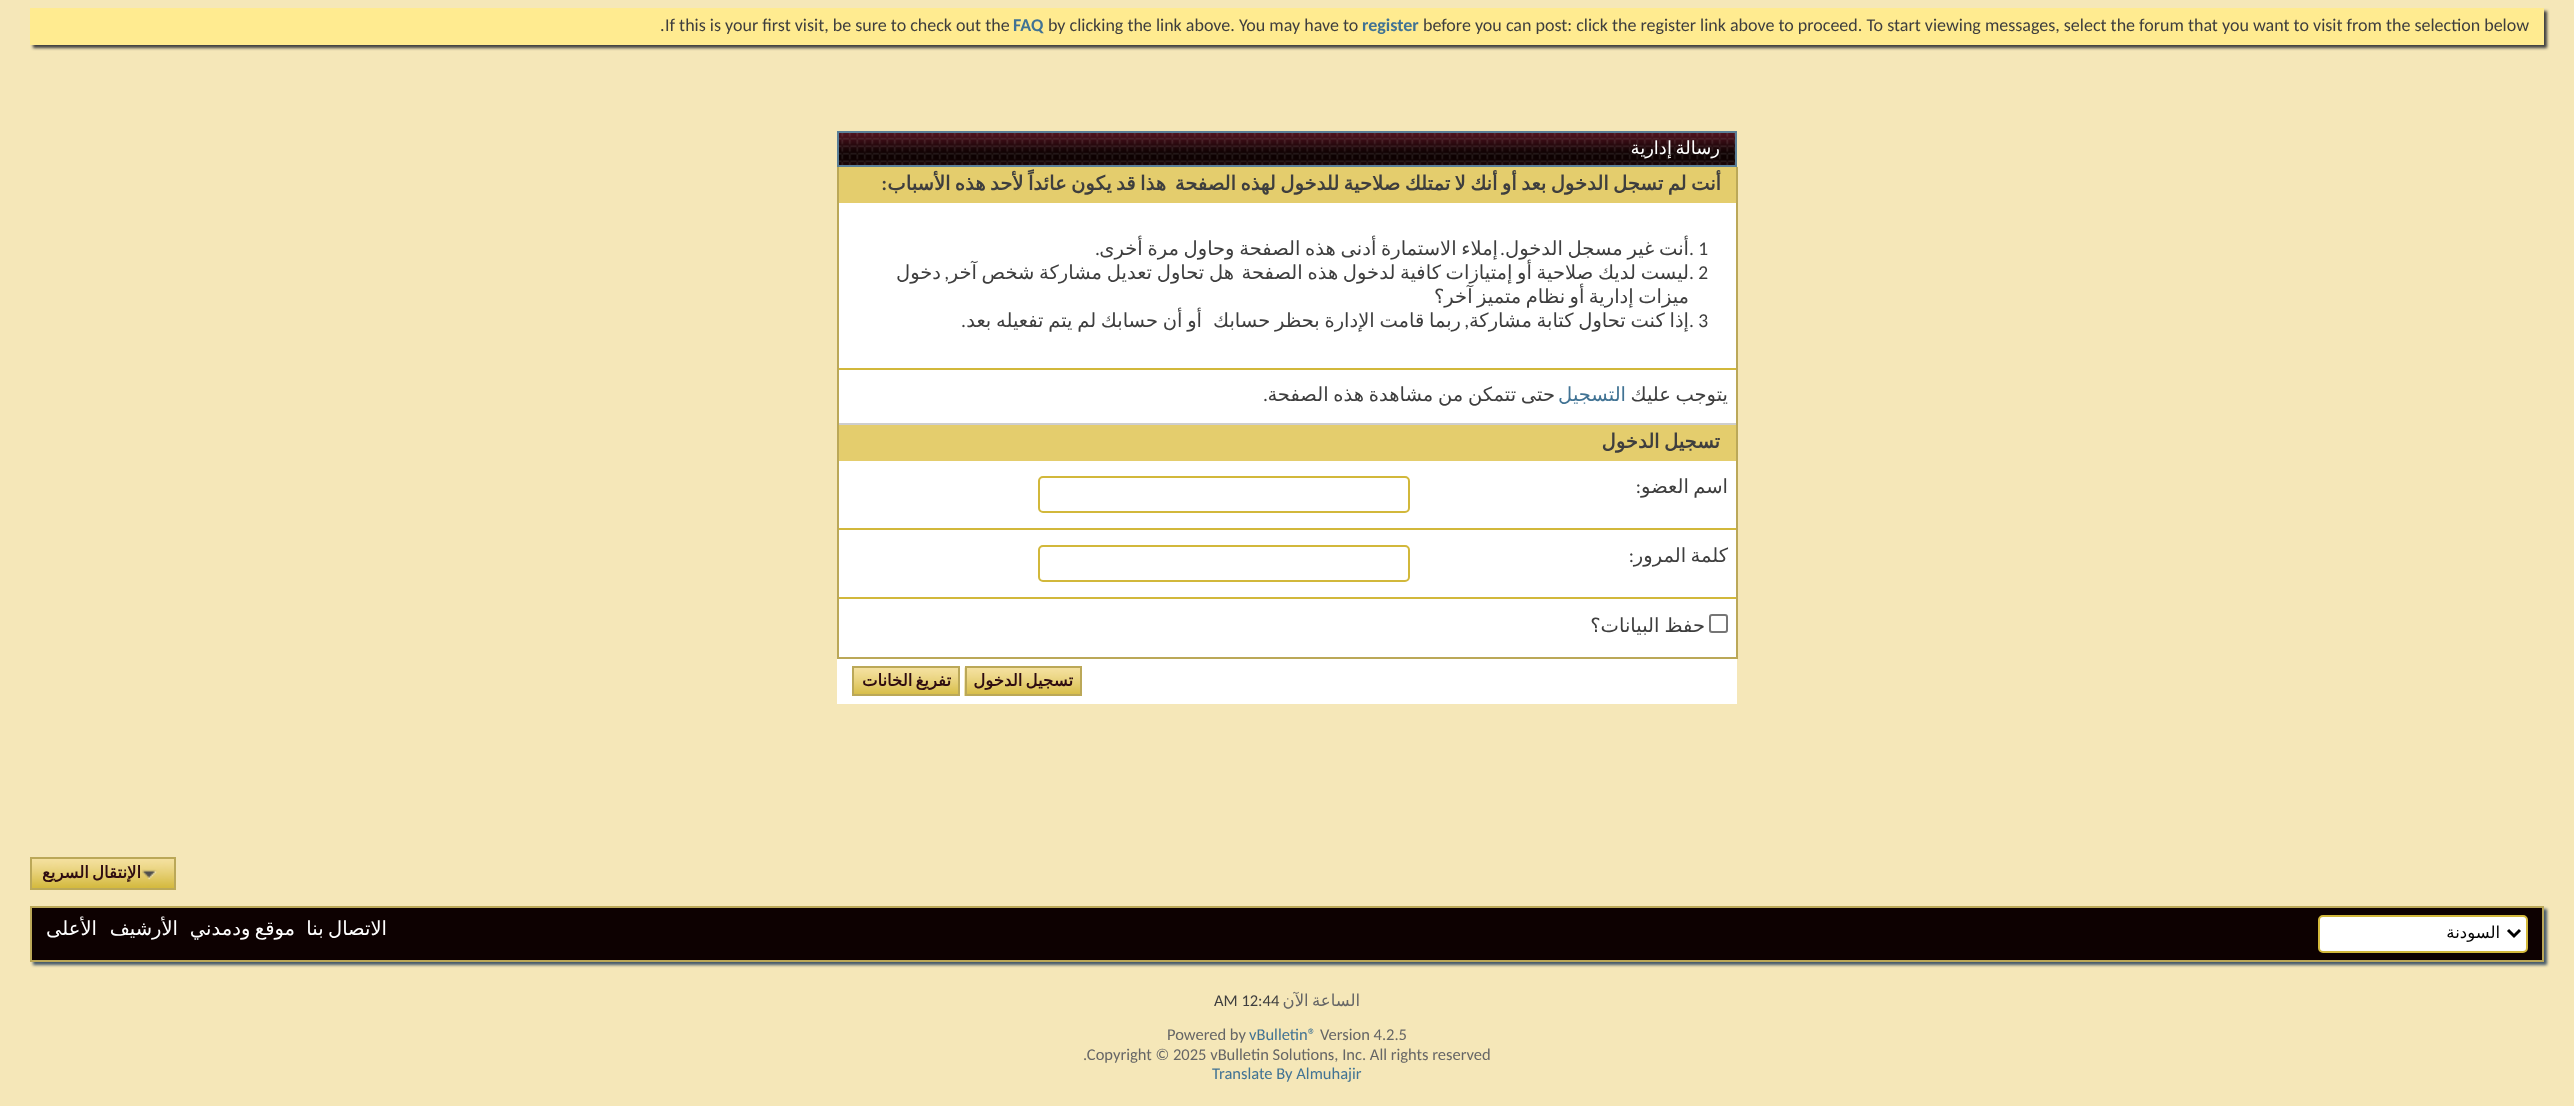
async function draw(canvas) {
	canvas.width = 2574;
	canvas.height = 1106;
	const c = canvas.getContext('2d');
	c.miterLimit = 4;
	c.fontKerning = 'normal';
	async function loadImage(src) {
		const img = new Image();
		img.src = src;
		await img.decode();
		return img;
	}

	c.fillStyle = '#f5e7b8';
	c.fillRect(0, 0, 2574, 1106);
	c.fillStyle = '#3e3e3e';
	c.filter = 'blur(1.5px)';
	c.beginPath();
	c.rect(33, 11, 2514, 37);
	c.fill();
	c.filter = 'none';
	c.fillStyle = '#ffeb90';
	c.fillRect(30, 8, 2514, 37);
	c.font = '18px Carlito';
	c.fillStyle = '#3e3e3e';
	c.fillText('before you can post: click the register link above to proceed. To start viewing messages, select the forum that you want to visit from the selection below', 1423, 31);
	c.font = 'bold 18px Carlito';
	c.fillStyle = '#417394';
	c.fillText('register', 1362, 31);
	c.font = '18px Carlito';
	c.fillStyle = '#3e3e3e';
	c.fillText('by clicking the link above. You may have to', 1048, 31);
	c.font = 'bold 18px Carlito';
	c.fillStyle = '#417394';
	c.fillText('FAQ', 1013, 31);
	c.font = '18px Carlito';
	c.fillStyle = '#3e3e3e';
	c.fillText('If this is your first visit, be sure to check out the', 665, 31);
	c.fillText('.', 660, 31);
	c.drawImage(await loadImage('img1.png'), 839, 133, 896, 32);
	c.strokeStyle = '#5a7f97';
	c.lineWidth = 2;
	c.strokeRect(838, 132, 898, 34);
	c.wordSpacing = '-2px';
	c.direction = 'rtl';
	c.font = '18px DejaVu Sans';
	c.fillStyle = '#fff';
	c.fillText('رسالة إدارية', 1720, 154);
	for (const [x, y, w, h, color] of [
		[1736, 167, 2, 492, '#bba858'],
		[837, 657, 900, 2, '#bba858'],
		[837, 167, 2, 492, '#bba858'],
		[839, 167, 897, 36, '#e4cd6d'],
	]) {
		c.fillStyle = color;
		c.fillRect(x, y, w, h);
	}
	c.wordSpacing = '-1.75px';
	c.font = 'bold 19.5px DejaVu Sans';
	c.fillStyle = '#3e3e3e';
	c.fillText('أنت لم تسجل الدخول بعد أو أنك لا تمتلك صلاحية للدخول لهذه الصفحة', 1721, 190);
	c.fillText('هذا قد يكون عائداً لأحد هذه الأسباب', 1166, 190);
	c.wordSpacing = '0px';
	c.font = 'bold 19.5px Carlito';
	c.fillText(':', 887, 190);
	c.fillStyle = '#fff';
	c.fillRect(839, 203, 897, 165);
	c.direction = 'ltr';
	c.font = '19.5px Carlito';
	c.fillStyle = '#3e3e3e';
	c.fillText('. 1', 1689, 255);
	c.wordSpacing = '-1.5px';
	c.direction = 'rtl';
	c.font = '19.5px DejaVu Sans';
	c.fillText('إملاء الاستمارة أدنى هذه الصفحة وحاول مرة أخرى', 1498, 255);
	c.fillText('أنت غير مسجل الدخول', 1689, 255);
	c.wordSpacing = '0px';
	c.font = '19.5px Carlito';
	c.fillText('.', 1100, 255);
	c.fillText('.', 1505, 255);
	c.direction = 'ltr';
	c.fillText('. 2', 1689, 279);
	c.wordSpacing = '-1.5px';
	c.direction = 'rtl';
	c.font = '19.5px DejaVu Sans';
	c.fillText('ليست لديك صلاحية أو إمتيازات كافية لدخول هذه الصفحة', 1689, 279);
	c.fillText('هل تحاول تعديل مشاركة شخص آخر', 1234, 279);
	c.wordSpacing = '0px';
	c.font = '19.5px Carlito';
	c.fillText(',', 949, 279);
	c.font = '19.5px DejaVu Sans';
	c.fillText('دخول', 941, 279);
	c.wordSpacing = '-1.75px';
	c.fillText('ميزات إدارية أو نظام متميز آخر؟', 1689, 303);
	c.wordSpacing = '0px';
	c.direction = 'ltr';
	c.font = '19.5px Carlito';
	c.fillText('. 3', 1689, 327);
	c.wordSpacing = '-1.5px';
	c.direction = 'rtl';
	c.font = '19.5px DejaVu Sans';
	c.fillText('إذا كنت تحاول كتابة مشاركة', 1689, 327);
	c.fillText('ربما قامت الإدارة بحظر حسابك', 1461, 327);
	c.wordSpacing = '0px';
	c.font = '19.5px Carlito';
	c.fillText(',', 1469, 327);
	c.wordSpacing = '-1.5px';
	c.font = '19.5px DejaVu Sans';
	c.fillText('أو أن حسابك لم يتم تفعيله بعد', 1202, 327);
	c.wordSpacing = '0px';
	c.font = '19.5px Carlito';
	c.fillText('.', 966, 327);
	c.fillStyle = '#fff';
	c.fillRect(839, 370, 897, 53);
	c.fillStyle = '#d2b83b';
	c.fillRect(839, 368, 897, 2);
	c.wordSpacing = '-1.75px';
	c.font = '19.5px DejaVu Sans';
	c.fillStyle = '#3e3e3e';
	c.fillText('يتوجب عليك', 1728, 401);
	c.wordSpacing = '0px';
	c.fillStyle = '#417394';
	c.fillText('التسجيل', 1626, 401);
	c.wordSpacing = '-1.5px';
	c.fillStyle = '#3e3e3e';
	c.fillText('حتى تتمكن من مشاهدة هذه الصفحة', 1555, 401);
	c.wordSpacing = '0px';
	c.font = '19.5px Carlito';
	c.fillText('.', 1268, 401);
	c.fillStyle = '#e4cd6d';
	c.fillRect(839, 425, 897, 36);
	c.fillStyle = '#cecece';
	c.fillRect(839, 423, 897, 2);
	c.wordSpacing = '-1.75px';
	c.font = 'bold 19.5px DejaVu Sans';
	c.fillStyle = '#3e3e3e';
	c.fillText('تسجيل الدخول', 1720, 448);
	c.fillStyle = '#fff';
	c.fillRect(839, 461, 897, 67);
	c.font = '19.5px DejaVu Sans';
	c.fillStyle = '#3e3e3e';
	c.fillText('اسم العضو', 1728, 493);
	c.wordSpacing = '0px';
	c.font = '19.5px Carlito';
	c.fillText(':', 1641, 493);
	c.beginPath();
	c.roundRect(1039, 477, 370, 35, 4);
	c.strokeStyle = '#d2b83b';
	c.stroke();
	c.fillStyle = '#fff';
	c.fillRect(839, 530, 897, 67);
	c.fillStyle = '#d2b83b';
	c.fillRect(839, 528, 897, 2);
	c.wordSpacing = '-1.75px';
	c.font = '19.5px DejaVu Sans';
	c.fillStyle = '#3e3e3e';
	c.fillText('كلمة المرور', 1728, 562);
	c.wordSpacing = '0px';
	c.font = '19.5px Carlito';
	c.fillText(':', 1634, 562);
	c.beginPath();
	c.roundRect(1039, 546, 370, 35, 4);
	c.stroke();
	c.fillStyle = '#fff';
	c.fillRect(839, 599, 897, 58);
	c.fillStyle = '#d2b83b';
	c.fillRect(839, 597, 897, 2);
	c.beginPath();
	c.roundRect(1710, 615, 17, 17, 2);
	c.strokeStyle = '#767676';
	c.stroke();
	c.wordSpacing = '-1px';
	c.font = '19.5px DejaVu Sans';
	c.fillStyle = '#3e3e3e';
	c.fillText('حفظ البيانات؟', 1705, 632);
	c.fillStyle = '#fff';
	c.fillRect(837, 659, 900, 45);
	c.drawImage(await loadImage('img2.png'), 964, 667, 116, 29);
	c.strokeStyle = '#bba858';
	c.strokeRect(966, 667, 115, 28);
	c.wordSpacing = '-2px';
	c.font = 'bold 16.5px DejaVu Sans';
	c.fillStyle = '#2e0c11';
	c.fillText('تسجيل الدخول', 1073, 686);
	c.drawImage(await loadImage('img3.png'), 854, 668, 104, 26);
	c.strokeRect(853, 667, 106, 28);
	c.fillText('تفريغ الخانات', 951, 686);
	c.drawImage(await loadImage('img4.png'), 32, 859, 142, 29);
	c.strokeRect(31, 858, 144, 31);
	c.drawImage(await loadImage('img5.png'), 142, 869, 15, 11);
	c.fillText('الإنتقال السريع', 141, 878);
	c.fillStyle = '#435769';
	c.filter = 'blur(1.5px)';
	c.beginPath();
	c.rect(33, 909, 2514, 56);
	c.fill();
	c.filter = 'none';
	c.fillStyle = '#0d0101';
	c.beginPath();
	c.rect(31, 907, 2512, 54);
	c.fill();
	c.stroke();
	c.fillStyle = '#fff';
	c.beginPath();
	c.roundRect(2319, 916, 208, 36, 4);
	c.fill();
	c.strokeStyle = '#d2b83b';
	c.stroke();
	c.beginPath();
	c.moveTo(2508, 930);
	c.lineTo(2514, 936);
	c.lineTo(2520, 930);
	c.strokeStyle = '#000';
	c.lineWidth = 3;
	c.stroke();
	c.wordSpacing = '0px';
	c.font = '16.5px DejaVu Sans';
	c.fillStyle = '#000';
	c.fillText('السودنة', 2500, 938);
	c.wordSpacing = '-1.75px';
	c.font = '19.5px DejaVu Sans';
	c.fillStyle = '#fff';
	c.fillText('الاتصال بنا', 387, 935);
	c.fillText('موقع ودمدني', 295, 935);
	c.wordSpacing = '0px';
	c.fillText('الأرشيف', 178, 935);
	c.fillText('الأعلى', 97, 935);
	c.wordSpacing = '-2px';
	c.font = '16.5px DejaVu Sans';
	c.fillStyle = '#666';
	c.fillText('الساعة الآن', 1360, 1006);
	c.wordSpacing = '0px';
	c.direction = 'ltr';
	c.font = '16.5px Carlito';
	c.fillStyle = '#3e3e3e';
	c.fillText('AM 12:44', 1214, 1006);
	c.fillStyle = '#666';
	c.fillText('Version 4.2.5', 1320, 1040);
	c.fillStyle = '#417394';
	c.fillText('vBulletin®', 1249, 1040);
	c.fillStyle = '#666';
	c.fillText('Powered by', 1167, 1040);
	c.fillText('.Copyright © 2025 vBulletin Solutions, Inc. All rights reserved', 1083, 1060);
	c.fillStyle = '#417394';
	c.fillText('Translate By Almuhajir', 1212, 1079);
}

draw(document.querySelector('canvas'));
